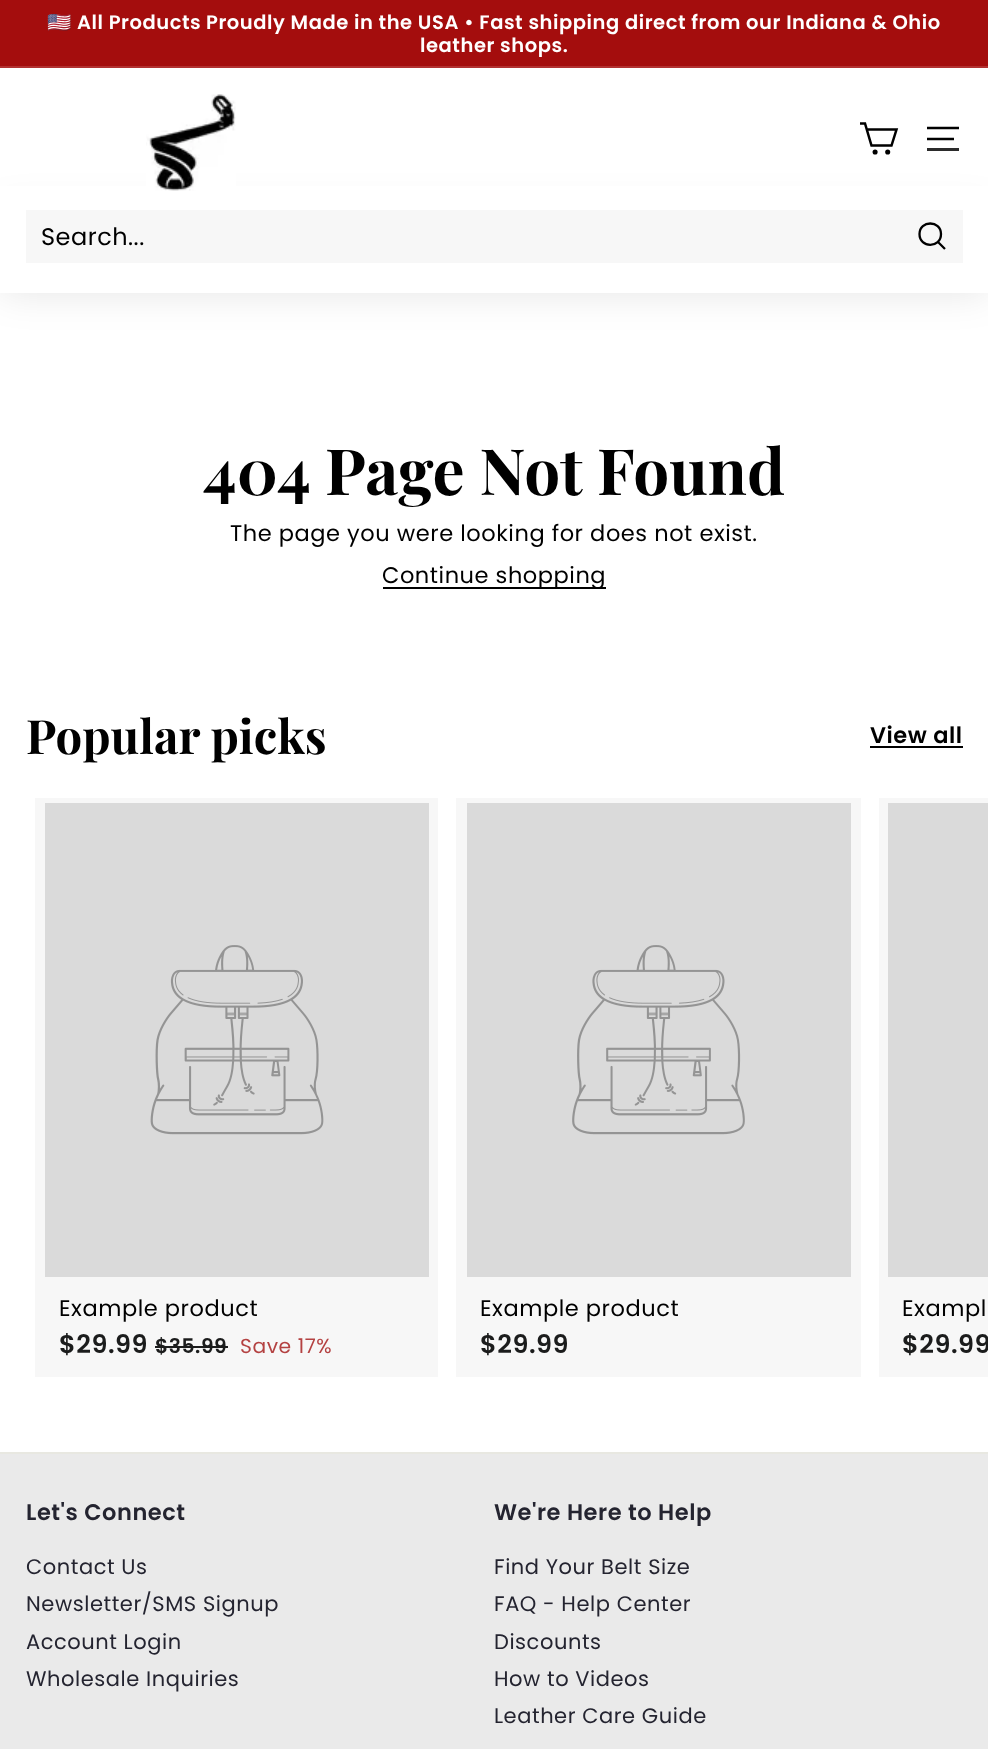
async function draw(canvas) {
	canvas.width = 988;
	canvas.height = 1749;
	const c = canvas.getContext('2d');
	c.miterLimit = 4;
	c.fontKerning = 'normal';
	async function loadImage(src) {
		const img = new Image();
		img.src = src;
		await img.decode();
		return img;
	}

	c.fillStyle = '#fff';
	c.fillRect(0, 0, 988, 1749);
	for (const [x, y, w, h, color] of [
		[879, 798, 109, 579, '#f7f7f7'],
		[456, 798, 405, 579, '#f7f7f7'],
		[35, 798, 403, 579, '#f7f7f7'],
		[0, 0, 988, 66, '#a40d0d'],
	]) {
		c.fillStyle = color;
		c.fillRect(x, y, w, h);
	}
	c.letterSpacing = '0.55px';
	c.font = 'bold 19.5px Noto Color Emoji';
	c.fillStyle = '#fff';
	c.fillText('🇺🇸', 47, 29);
	c.font = '600 19.5px Poppins';
	c.fillText('All Products', 77, 29);
	c.fillText('Proudly Made in the USA • Fast shipping direct from our Indiana & Ohio', 206, 29);
	c.save();
	c.beginPath();
	c.rect(26, 11, 937, 46);
	c.clip();
	c.fillText('leather shops.', 420, 52);
	c.restore();
	c.fillStyle = '#b23131';
	c.fillRect(0, 66, 988, 2);
	c.fillStyle = '#0000001a';
	c.filter = 'blur(19px)';
	c.beginPath();
	c.rect(0, 210, 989, 83);
	c.fill();
	c.filter = 'none';
	c.fillStyle = '#fff';
	c.fillRect(0, 186, 988, 107);
	c.drawImage(await loadImage('img1.png'), 146, 94, 90, 97);
	c.beginPath();
	c.moveTo(867, 129.5);
	c.lineTo(896.5, 129.5);
	c.lineTo(891.5, 145.5);
	c.lineTo(871.5, 145.5);
	c.lineTo(865, 123.5);
	c.lineTo(860, 123.5);
	c.strokeStyle = '#000';
	c.lineWidth = 2.5;
	c.stroke();
	c.beginPath();
	c.arc(875.1, 152, 1.3, 0, 2 * Math.PI);
	c.stroke();
	c.beginPath();
	c.arc(887.7, 152, 1.3, 0, 2 * Math.PI);
	c.stroke();
	c.beginPath();
	c.moveTo(927, 128);
	c.lineTo(959, 128);
	c.moveTo(927, 139);
	c.lineTo(954, 139);
	c.stroke();
	c.fillStyle = '#2b2b2b';
	c.fillRect(927, 148, 32, 3);
	c.fillStyle = '#f7f7f7';
	c.fillRect(26, 210, 937, 53);
	c.letterSpacing = '0.5px';
	c.font = '24px Poppins';
	c.fillStyle = '#000';
	c.fillText('Search...', 41, 245);
	c.beginPath();
	c.moveTo(941, 234);
	c.bezierCurveTo(941, 248.5, 919.5, 248.5, 919.5, 234);
	c.bezierCurveTo(919.5, 220, 941, 220, 941, 234);
	c.closePath();
	c.moveTo(945, 249);
	c.lineTo(938, 242);
	c.lineWidth = 2.3;
	c.stroke();
	c.letterSpacing = '0px';
	c.font = 'bold 63.75px Playfair Display';
	c.fillText('404 Page Not Found', 203, 495);
	c.letterSpacing = '0.55px';
	c.font = '22.5px Poppins';
	c.fillText('The page you were looking for does not exist.', 230, 541);
	c.fillRect(383, 587, 223, 2);
	c.fillText('Continue shopping', 382, 583);
	c.letterSpacing = '0px';
	c.font = 'bold 47.25px Playfair Display';
	c.fillText('Popular picks', 26, 754);
	c.letterSpacing = '0.55px';
	c.font = '600 22.5px Poppins';
	c.fillText('View all', 870, 743);
	c.fillRect(870, 746, 93, 2);
	c.fillStyle = '#dadada';
	c.fillRect(45, 803, 384, 474);
	c.drawImage(await loadImage('img2.png'), 150, 945, 174, 190);
	c.font = '22.5px Poppins';
	c.fillStyle = '#000';
	c.fillText('Example product', 59, 1316);
	c.font = '600 25.5px Poppins';
	c.fillStyle = '#1b1c1c';
	c.fillText('$29.99', 59, 1353);
	c.font = '600 20.25px Poppins';
	c.fillText('$35.99', 155, 1353);
	c.fillRect(155, 1346, 73, 2);
	c.font = '20.25px Poppins';
	c.fillStyle = '#b44242';
	c.fillText('Save 17%', 240, 1353);
	c.fillStyle = '#dadada';
	c.fillRect(467, 803, 384, 474);
	c.drawImage(await loadImage('img3.png'), 572, 945, 173, 190);
	c.font = '22.5px Poppins';
	c.fillStyle = '#000';
	c.fillText('Example product', 480, 1316);
	c.font = '600 25.5px Poppins';
	c.fillStyle = '#1b1c1c';
	c.fillText('$29.99', 480, 1353);
	c.fillStyle = '#dadada';
	c.fillRect(888, 803, 100, 474);
	c.font = '22.5px Poppins';
	c.fillStyle = '#000';
	c.fillText('Exampl', 902, 1316);
	c.font = '600 25.5px Poppins';
	c.fillStyle = '#1b1c1c';
	c.fillText('$29.99', 902, 1353);
	c.fillStyle = '#eaeaea';
	c.fillRect(0, 1454, 988, 295);
	c.fillStyle = '#e8e8e1';
	c.fillRect(0, 1452, 988, 2);
	c.font = '600 22.5px Poppins';
	c.fillStyle = '#242430';
	c.fillText('Let\'s Connect', 26, 1520);
	c.font = '21px Poppins';
	for (const [text, x, y] of [
		['Contact Us', 26, 1574],
		['Newsletter/SMS Signup', 26, 1611],
		['Account Login', 26, 1649],
		['Wholesale Inquiries', 26, 1686],
	]) {
		c.fillText(text, x, y);
	}
	c.font = '600 22.5px Poppins';
	c.fillText('We\'re Here to Help', 494, 1520);
	c.font = '21px Poppins';
	for (const [text, x, y] of [
		['Find Your Belt Size', 494, 1574],
		['FAQ - Help Center', 494, 1611],
		['Discounts', 494, 1649],
		['How to Videos', 494, 1686],
		['Leather Care Guide', 494, 1723],
	]) {
		c.fillText(text, x, y);
	}
}

draw(document.querySelector('canvas'));
